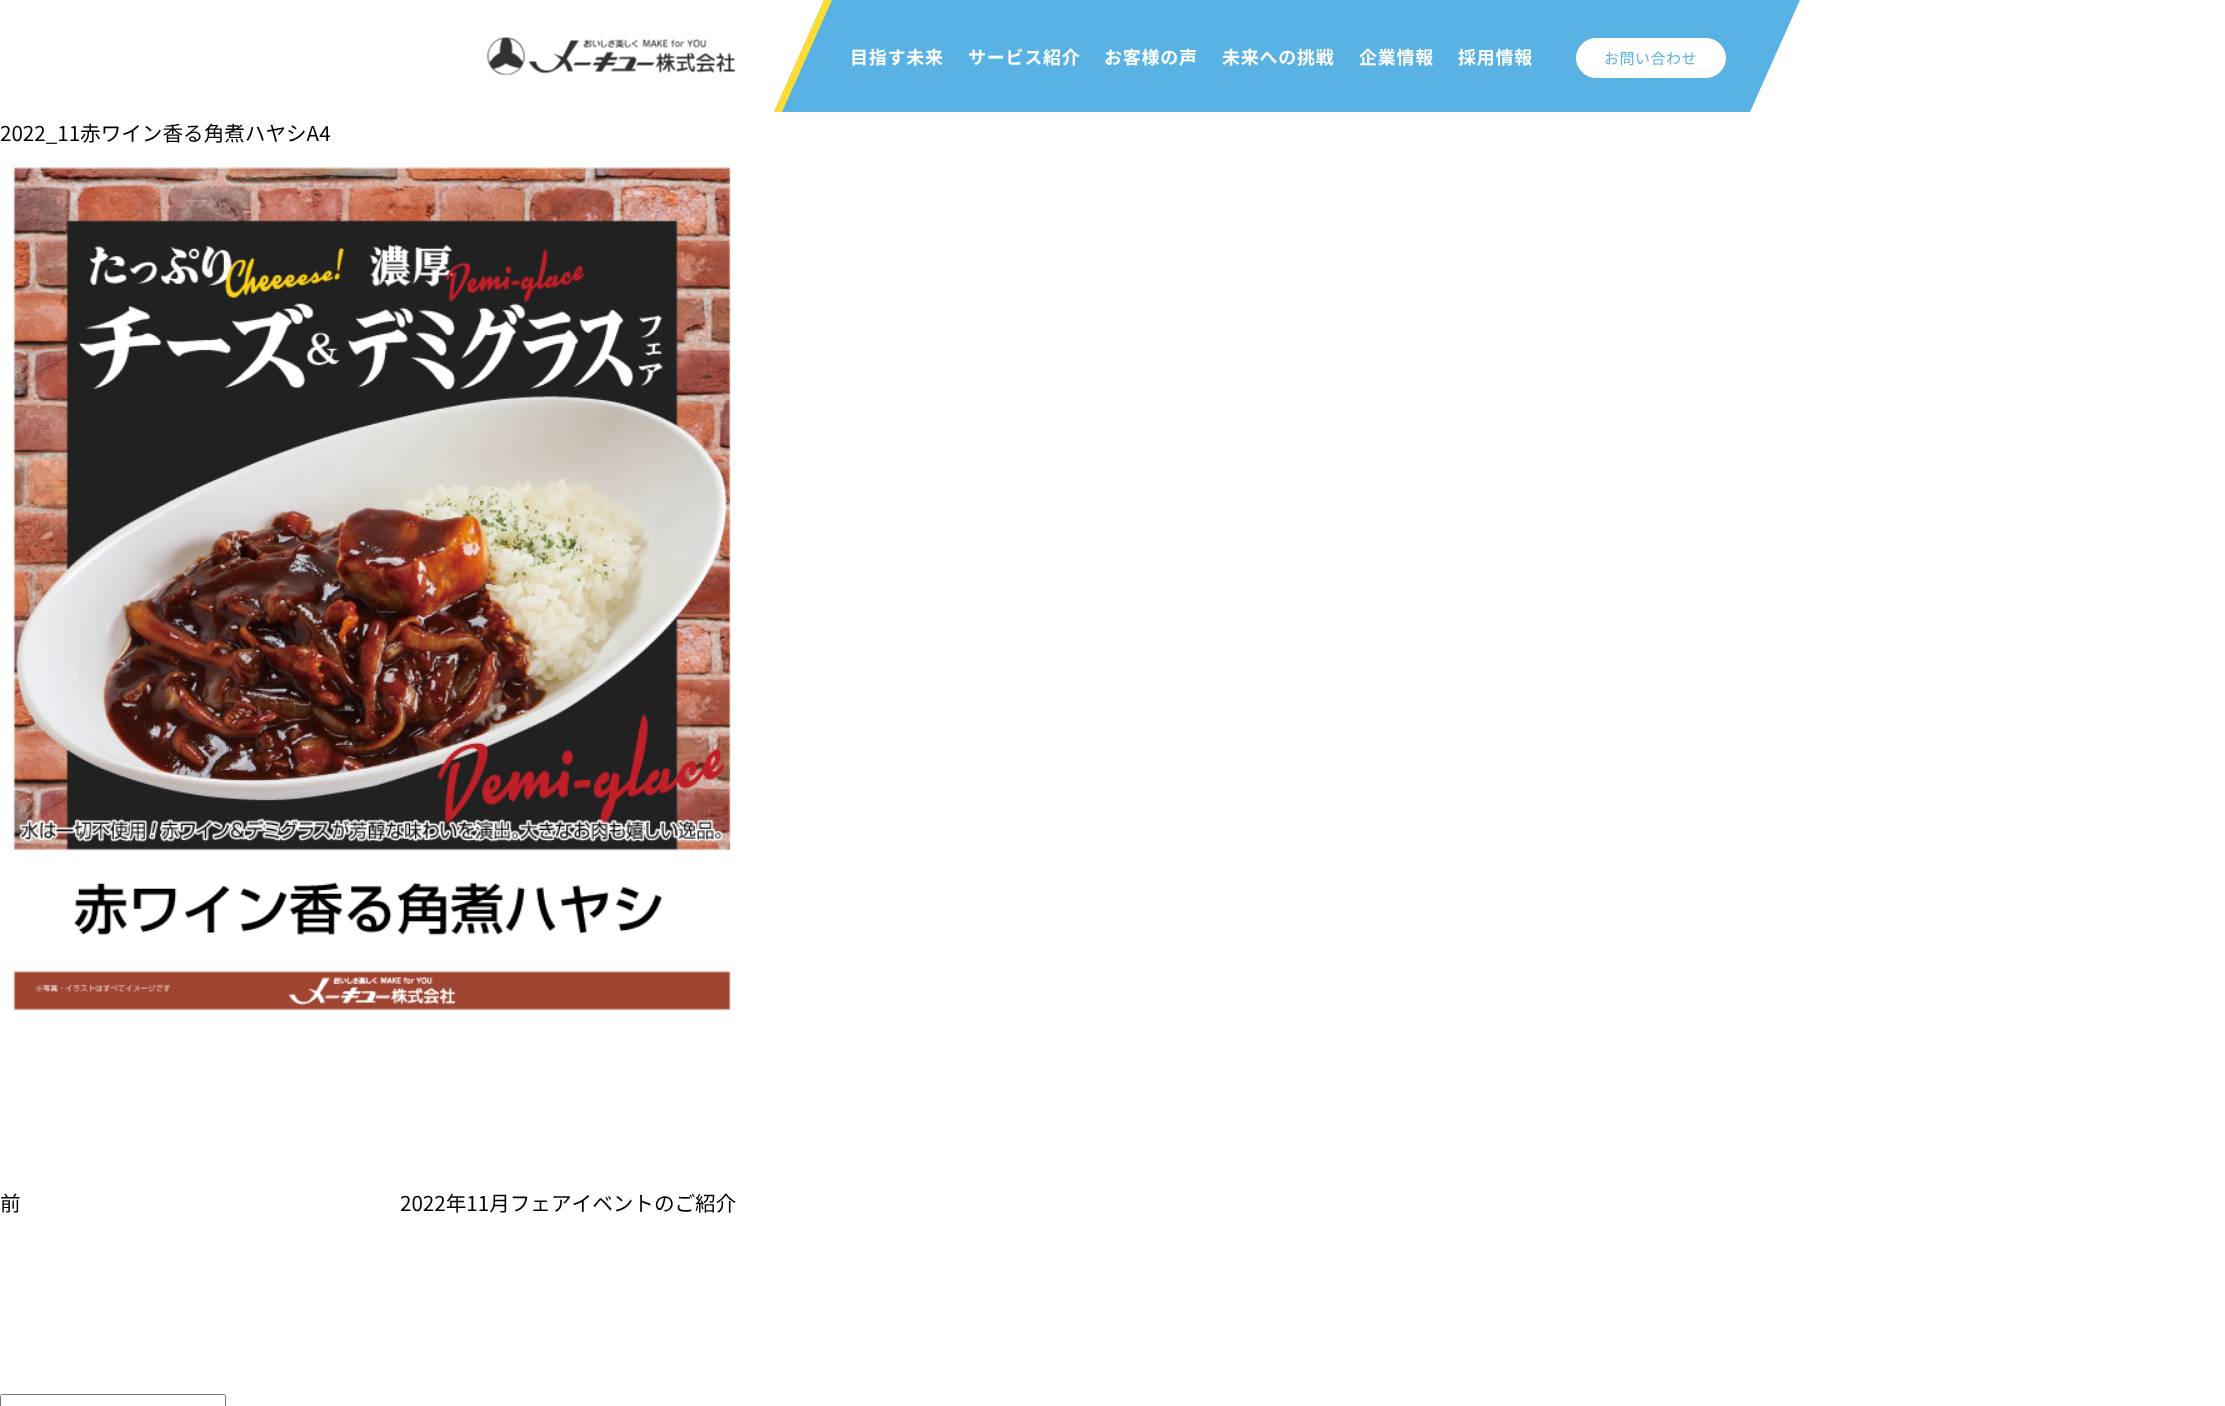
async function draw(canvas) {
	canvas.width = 2225;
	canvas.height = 1406;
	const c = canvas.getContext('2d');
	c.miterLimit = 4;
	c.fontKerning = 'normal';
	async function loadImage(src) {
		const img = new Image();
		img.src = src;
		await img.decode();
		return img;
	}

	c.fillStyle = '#fff';
	c.fillRect(0, 0, 2225, 1406);
	c.drawImage(await loadImage('img1.png'), 487, 37, 249, 39);
	c.fillStyle = '#59b2e4';
	c.beginPath();
	c.moveTo(824, 0);
	c.lineTo(1800, 0);
	c.lineTo(1750, 112);
	c.lineTo(774, 112);
	c.closePath();
	c.fill();
	c.fillStyle = '#ffdc32';
	c.beginPath();
	c.moveTo(824, 0);
	c.lineTo(832, 0);
	c.lineTo(782, 112);
	c.lineTo(774, 112);
	c.closePath();
	c.fill();
	c.letterSpacing = '0.75px';
	c.font = 'bold 18px Noto Sans JP';
	c.fillStyle = '#fff';
	for (const [text, x, y] of [
		['目指す未来', 850, 64],
		['サービス紹介', 968, 64],
		['お客様の声', 1104, 64],
		['未来への挑戦', 1222, 64],
		['企業情報', 1359, 64],
		['採用情報', 1458, 64],
	]) {
		c.fillText(text, x, y);
	}
	c.beginPath();
	c.roundRect(1576.5, 38.5, 149, 39, 19.5);
	c.fill();
	c.strokeStyle = '#fff';
	c.stroke();
	c.letterSpacing = '0.5px';
	c.font = '15px Noto Sans JP';
	c.fillStyle = '#59b2e4';
	c.fillText('お問い合わせ', 1604, 64);
	c.letterSpacing = '0px';
	c.font = '20.6px Noto Sans JP';
	c.fillStyle = '#000';
	c.fillText('2022_11赤ワイン香る角煮ハヤシA4', 0, 141);
	c.drawImage(await loadImage('img2.png'), 13, 167, 718, 844);
	c.fillText('前', 0, 1211);
	c.fillText('2022年11月フェアイベントのご紹介', 400, 1211);
	c.beginPath();
	c.roundRect(0.5, 1394.5, 225, 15, 2);
	c.strokeStyle = '#767676';
	c.stroke();
}

draw(document.querySelector('canvas'));
